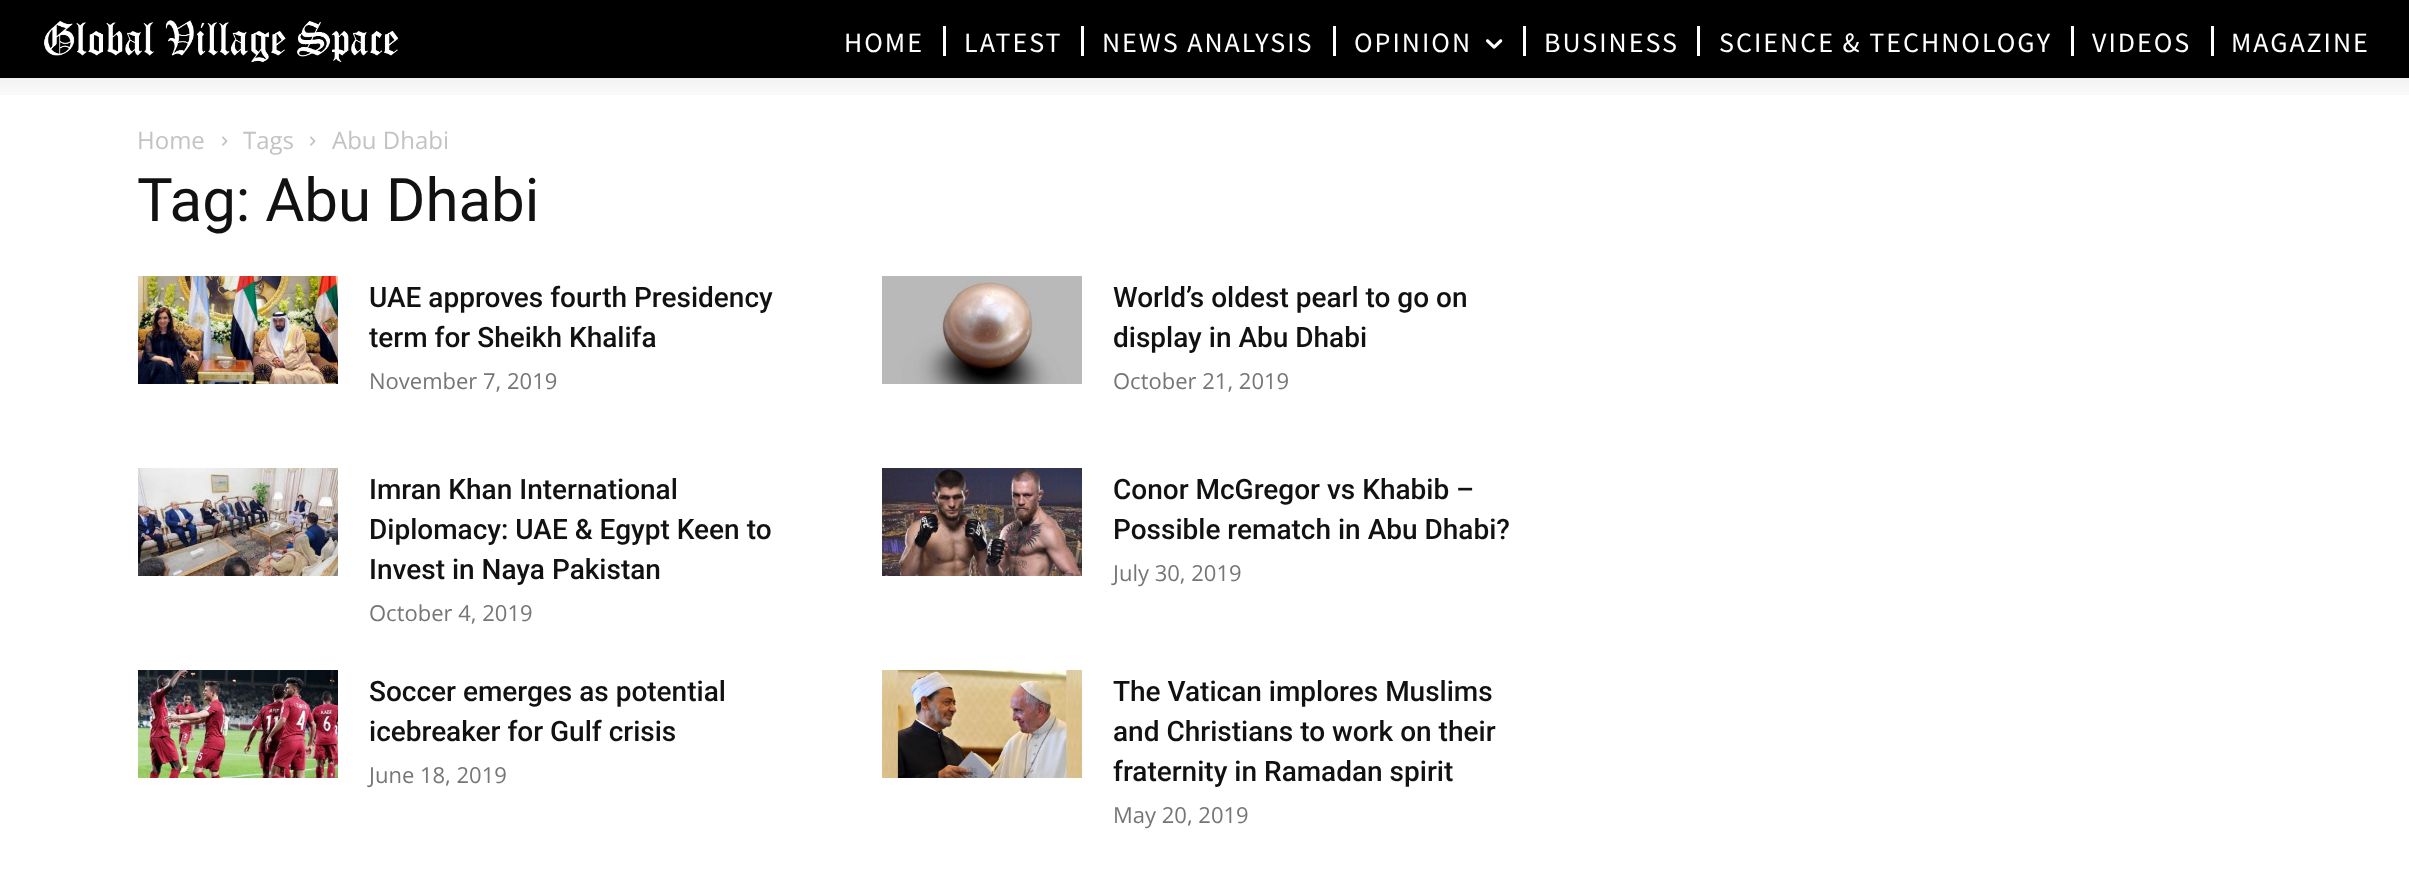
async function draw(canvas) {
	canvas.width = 2409;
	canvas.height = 876;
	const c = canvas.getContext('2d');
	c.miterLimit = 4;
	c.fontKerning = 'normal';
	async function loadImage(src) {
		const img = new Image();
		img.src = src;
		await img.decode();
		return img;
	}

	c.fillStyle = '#fff';
	c.fillRect(0, 0, 2409, 876);
	c.fillStyle = '#000';
	c.fillRect(0, 0, 2409, 78);
	c.drawImage(await loadImage('img3.png'), 222, 136, 6, 10);
	c.drawImage(await loadImage('img3.png'), 310, 136, 6, 10);
	c.save();
	c.beginPath();
	c.rect(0, 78, 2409, 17);
	c.clip();
	c.fillStyle = '#0000001a';
	c.filter = 'blur(20px)';
	c.beginPath();
	c.rect(-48, 0, 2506, 78);
	c.fill();
	c.filter = 'none';
	c.restore();
	c.drawImage(await loadImage('img1.png'), 44, 20, 354, 43);
	c.letterSpacing = '2px';
	c.font = '28px Source Sans Pro';
	c.fillStyle = '#fff';
	c.fillText('HOME', 844, 52);
	c.fillRect(943, 26, 3, 30);
	c.fillText('LATEST', 964, 52);
	c.fillRect(1081, 26, 3, 30);
	c.fillText('NEWS ANALYSIS', 1102, 52);
	c.fillRect(1333, 26, 3, 30);
	c.fillText('OPINION', 1354, 52);
	c.drawImage(await loadImage('img2.png'), 1486, 39, 17, 10);
	c.fillRect(1523, 26, 3, 30);
	c.fillText('BUSINESS', 1544, 52);
	c.fillRect(1697, 26, 3, 30);
	c.fillText('SCIENCE & TECHNOLOGY', 1719, 52);
	c.fillRect(2071, 26, 3, 30);
	c.fillText('VIDEOS', 2092, 52);
	c.fillRect(2211, 26, 3, 30);
	c.fillText('MAGAZINE', 2231, 52);
	c.letterSpacing = '0px';
	c.font = '24px Open Sans';
	c.fillStyle = '#c3c3c3';
	for (const [text, x, y] of [
		['Home', 137, 149],
		['Tags', 243, 149],
		['Abu Dhabi', 332, 149],
	]) {
		c.fillText(text, x, y);
	}
	c.font = '60px Roboto';
	c.fillStyle = '#111';
	c.fillText('Tag: Abu Dhabi', 137, 221);
	c.drawImage(await loadImage('img4.png'), 138, 276, 200, 108);
	c.font = '500 28px Roboto';
	c.fillText('UAE approves fourth Presidency', 369, 307);
	c.fillText('term for Sheikh Khalifa', 369, 347);
	c.font = '22px Open Sans';
	c.fillStyle = '#767676';
	c.fillText('November 7, 2019', 369, 389);
	c.drawImage(await loadImage('img5.png'), 882, 276, 200, 108);
	c.font = '500 28px Roboto';
	c.fillStyle = '#111';
	c.fillText('World’s oldest pearl to go on', 1113, 307);
	c.fillText('display in Abu Dhabi', 1113, 347);
	c.font = '22px Open Sans';
	c.fillStyle = '#767676';
	c.fillText('October 21, 2019', 1113, 389);
	c.drawImage(await loadImage('img6.png'), 138, 468, 200, 108);
	c.font = '500 28px Roboto';
	c.fillStyle = '#111';
	for (const [text, x, y] of [
		['Imran Khan International', 369, 499],
		['Diplomacy: UAE & Egypt Keen to', 369, 539],
		['Invest in Naya Pakistan', 369, 579],
	]) {
		c.fillText(text, x, y);
	}
	c.font = '22px Open Sans';
	c.fillStyle = '#767676';
	c.fillText('October 4, 2019', 369, 621);
	c.drawImage(await loadImage('img7.png'), 882, 468, 200, 108);
	c.font = '500 28px Roboto';
	c.fillStyle = '#111';
	c.fillText('Conor McGregor vs Khabib –', 1113, 499);
	c.fillText('Possible rematch in Abu Dhabi?', 1113, 539);
	c.font = '22px Open Sans';
	c.fillStyle = '#767676';
	c.fillText('July 30, 2019', 1113, 581);
	c.drawImage(await loadImage('img8.png'), 138, 670, 200, 108);
	c.font = '500 28px Roboto';
	c.fillStyle = '#111';
	c.fillText('Soccer emerges as potential', 369, 701);
	c.fillText('icebreaker for Gulf crisis', 369, 741);
	c.font = '22px Open Sans';
	c.fillStyle = '#767676';
	c.fillText('June 18, 2019', 369, 783);
	c.drawImage(await loadImage('img9.png'), 882, 670, 200, 108);
	c.font = '500 28px Roboto';
	c.fillStyle = '#111';
	for (const [text, x, y] of [
		['The Vatican implores Muslims', 1113, 701],
		['and Christians to work on their', 1113, 741],
		['fraternity in Ramadan spirit', 1113, 781],
	]) {
		c.fillText(text, x, y);
	}
	c.font = '22px Open Sans';
	c.fillStyle = '#767676';
	c.fillText('May 20, 2019', 1113, 823);
}

draw(document.querySelector('canvas'));
